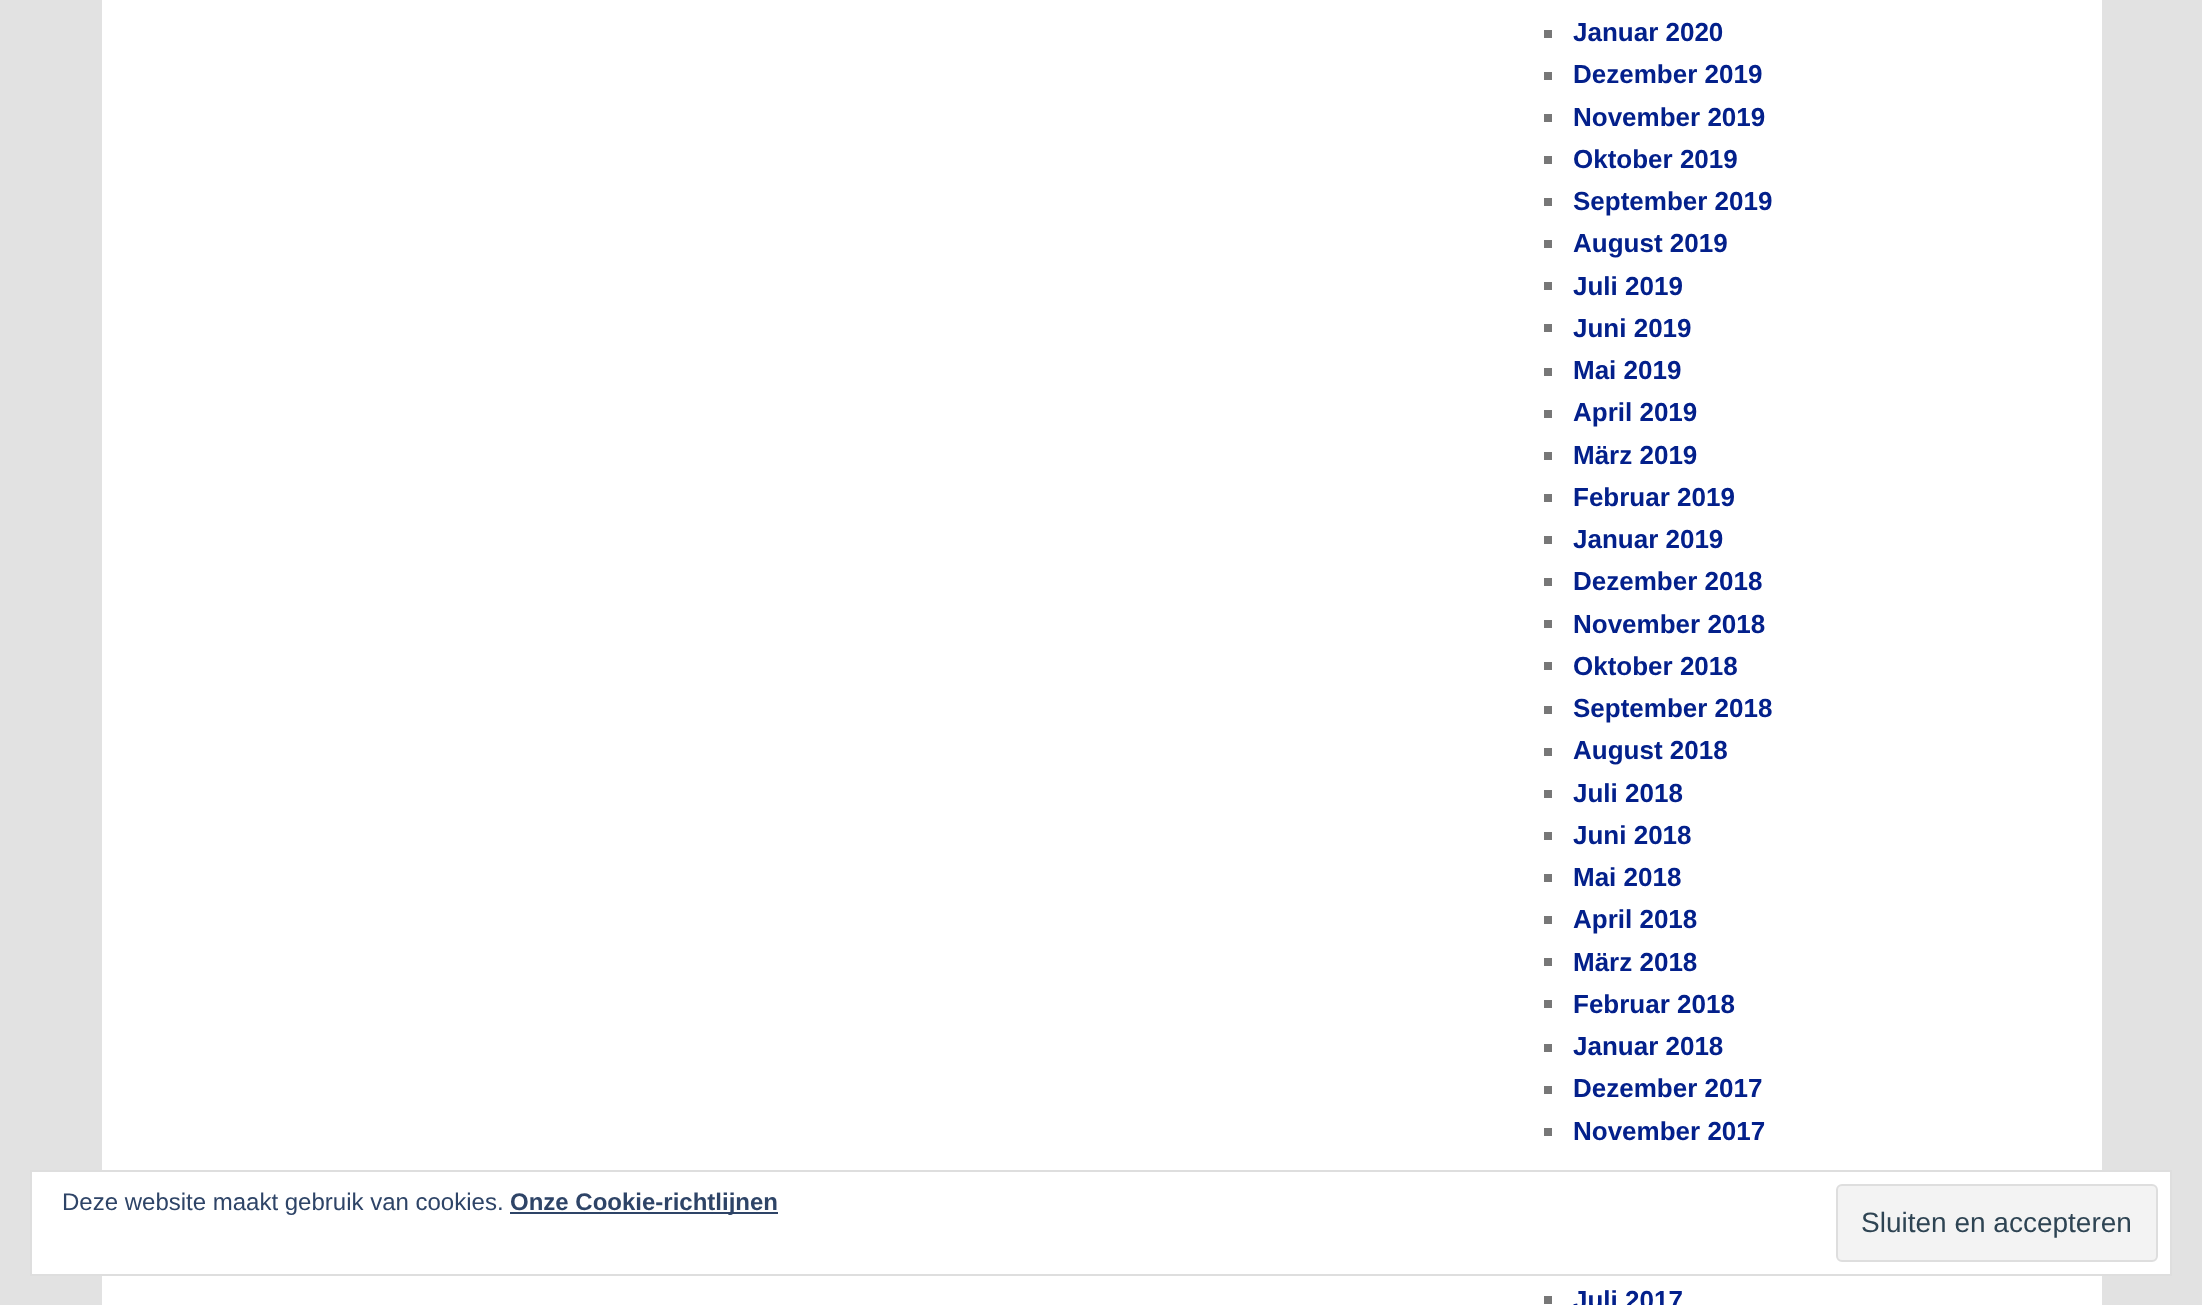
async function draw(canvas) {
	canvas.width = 2202;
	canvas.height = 1305;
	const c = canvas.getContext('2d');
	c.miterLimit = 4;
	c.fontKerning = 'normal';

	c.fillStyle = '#e2e2e2';
	c.fillRect(0, 0, 2202, 1305);
	c.fillStyle = '#fff';
	c.fillRect(102, 0, 2000, 1305);
	c.fillStyle = '#777';
	c.fillRect(1544, 30, 8, 8);
	c.font = 'bold 26px Liberation Sans';
	c.fillStyle = '#03208b';
	c.fillText('Januar 2020', 1573, 41);
	c.fillStyle = '#777';
	c.fillRect(1544, 72, 8, 8);
	c.fillStyle = '#03208b';
	c.fillText('Dezember 2019', 1573, 83);
	c.fillStyle = '#777';
	c.fillRect(1544, 114, 8, 8);
	c.fillStyle = '#03208b';
	c.fillText('November 2019', 1573, 126);
	c.fillStyle = '#777';
	c.fillRect(1544, 156, 8, 8);
	c.fillStyle = '#03208b';
	c.fillText('Oktober 2019', 1573, 168);
	c.fillStyle = '#777';
	c.fillRect(1544, 198, 8, 8);
	c.fillStyle = '#03208b';
	c.fillText('September 2019', 1573, 210);
	c.fillStyle = '#777';
	c.fillRect(1544, 240, 8, 8);
	c.fillStyle = '#03208b';
	c.fillText('August 2019', 1573, 252);
	c.fillStyle = '#777';
	c.fillRect(1544, 282, 8, 8);
	c.fillStyle = '#03208b';
	c.fillText('Juli 2019', 1573, 295);
	c.fillStyle = '#777';
	c.fillRect(1544, 324, 8, 8);
	c.fillStyle = '#03208b';
	c.fillText('Juni 2019', 1573, 337);
	c.fillStyle = '#777';
	c.fillRect(1544, 368, 8, 8);
	c.fillStyle = '#03208b';
	c.fillText('Mai 2019', 1573, 379);
	c.fillStyle = '#777';
	c.fillRect(1544, 410, 8, 8);
	c.fillStyle = '#03208b';
	c.fillText('April 2019', 1573, 421);
	c.fillStyle = '#777';
	c.fillRect(1544, 452, 8, 8);
	c.fillStyle = '#03208b';
	c.fillText('März 2019', 1573, 464);
	c.fillStyle = '#777';
	c.fillRect(1544, 494, 8, 8);
	c.fillStyle = '#03208b';
	c.fillText('Februar 2019', 1573, 506);
	c.fillStyle = '#777';
	c.fillRect(1544, 536, 8, 8);
	c.fillStyle = '#03208b';
	c.fillText('Januar 2019', 1573, 548);
	c.fillStyle = '#777';
	c.fillRect(1544, 578, 8, 8);
	c.fillStyle = '#03208b';
	c.fillText('Dezember 2018', 1573, 590);
	c.fillStyle = '#777';
	c.fillRect(1544, 620, 8, 8);
	c.fillStyle = '#03208b';
	c.fillText('November 2018', 1573, 633);
	c.fillStyle = '#777';
	c.fillRect(1544, 662, 8, 8);
	c.fillStyle = '#03208b';
	c.fillText('Oktober 2018', 1573, 675);
	c.fillStyle = '#777';
	c.fillRect(1544, 706, 8, 8);
	c.fillStyle = '#03208b';
	c.fillText('September 2018', 1573, 717);
	c.fillStyle = '#777';
	c.fillRect(1544, 748, 8, 8);
	c.fillStyle = '#03208b';
	c.fillText('August 2018', 1573, 759);
	c.fillStyle = '#777';
	c.fillRect(1544, 790, 8, 8);
	c.fillStyle = '#03208b';
	c.fillText('Juli 2018', 1573, 802);
	c.fillStyle = '#777';
	c.fillRect(1544, 832, 8, 8);
	c.fillStyle = '#03208b';
	c.fillText('Juni 2018', 1573, 844);
	c.fillStyle = '#777';
	c.fillRect(1544, 874, 8, 8);
	c.fillStyle = '#03208b';
	c.fillText('Mai 2018', 1573, 886);
	c.fillStyle = '#777';
	c.fillRect(1544, 916, 8, 8);
	c.fillStyle = '#03208b';
	c.fillText('April 2018', 1573, 928);
	c.fillStyle = '#777';
	c.fillRect(1544, 958, 8, 8);
	c.fillStyle = '#03208b';
	c.fillText('März 2018', 1573, 971);
	c.fillStyle = '#777';
	c.fillRect(1544, 1000, 8, 8);
	c.fillStyle = '#03208b';
	c.fillText('Februar 2018', 1573, 1013);
	c.fillStyle = '#777';
	c.fillRect(1544, 1044, 8, 8);
	c.fillStyle = '#03208b';
	c.fillText('Januar 2018', 1573, 1055);
	c.fillStyle = '#777';
	c.fillRect(1544, 1086, 8, 8);
	c.fillStyle = '#03208b';
	c.fillText('Dezember 2017', 1573, 1097);
	c.fillStyle = '#777';
	c.fillRect(1544, 1128, 8, 8);
	c.fillStyle = '#03208b';
	c.fillText('November 2017', 1573, 1140);
	c.fillStyle = '#777';
	c.fillRect(1544, 1296, 8, 8);
	c.fillStyle = '#03208b';
	c.fillText('Juli 2017', 1573, 1309);
	c.fillStyle = '#fff';
	c.beginPath();
	c.rect(31, 1171, 2140, 104);
	c.fill();
	c.strokeStyle = '#dedede';
	c.lineWidth = 2;
	c.stroke();
	c.font = '24px Liberation Sans';
	c.fillStyle = '#2e4467';
	c.fillText('Deze website maakt gebruik van cookies.', 62, 1210);
	c.fillRect(510, 1212, 268, 2);
	c.font = 'bold 24px Liberation Sans';
	c.fillText('Onze Cookie-richtlijnen', 510, 1210);
	c.fillStyle = '#f3f3f3';
	c.beginPath();
	c.roundRect(1837, 1185, 320, 76, 5);
	c.fill();
	c.stroke();
	c.font = '28px Liberation Sans';
	c.fillStyle = '#2e4453';
	c.fillText('Sluiten en accepteren', 1861, 1232);
}

draw(document.querySelector('canvas'));
